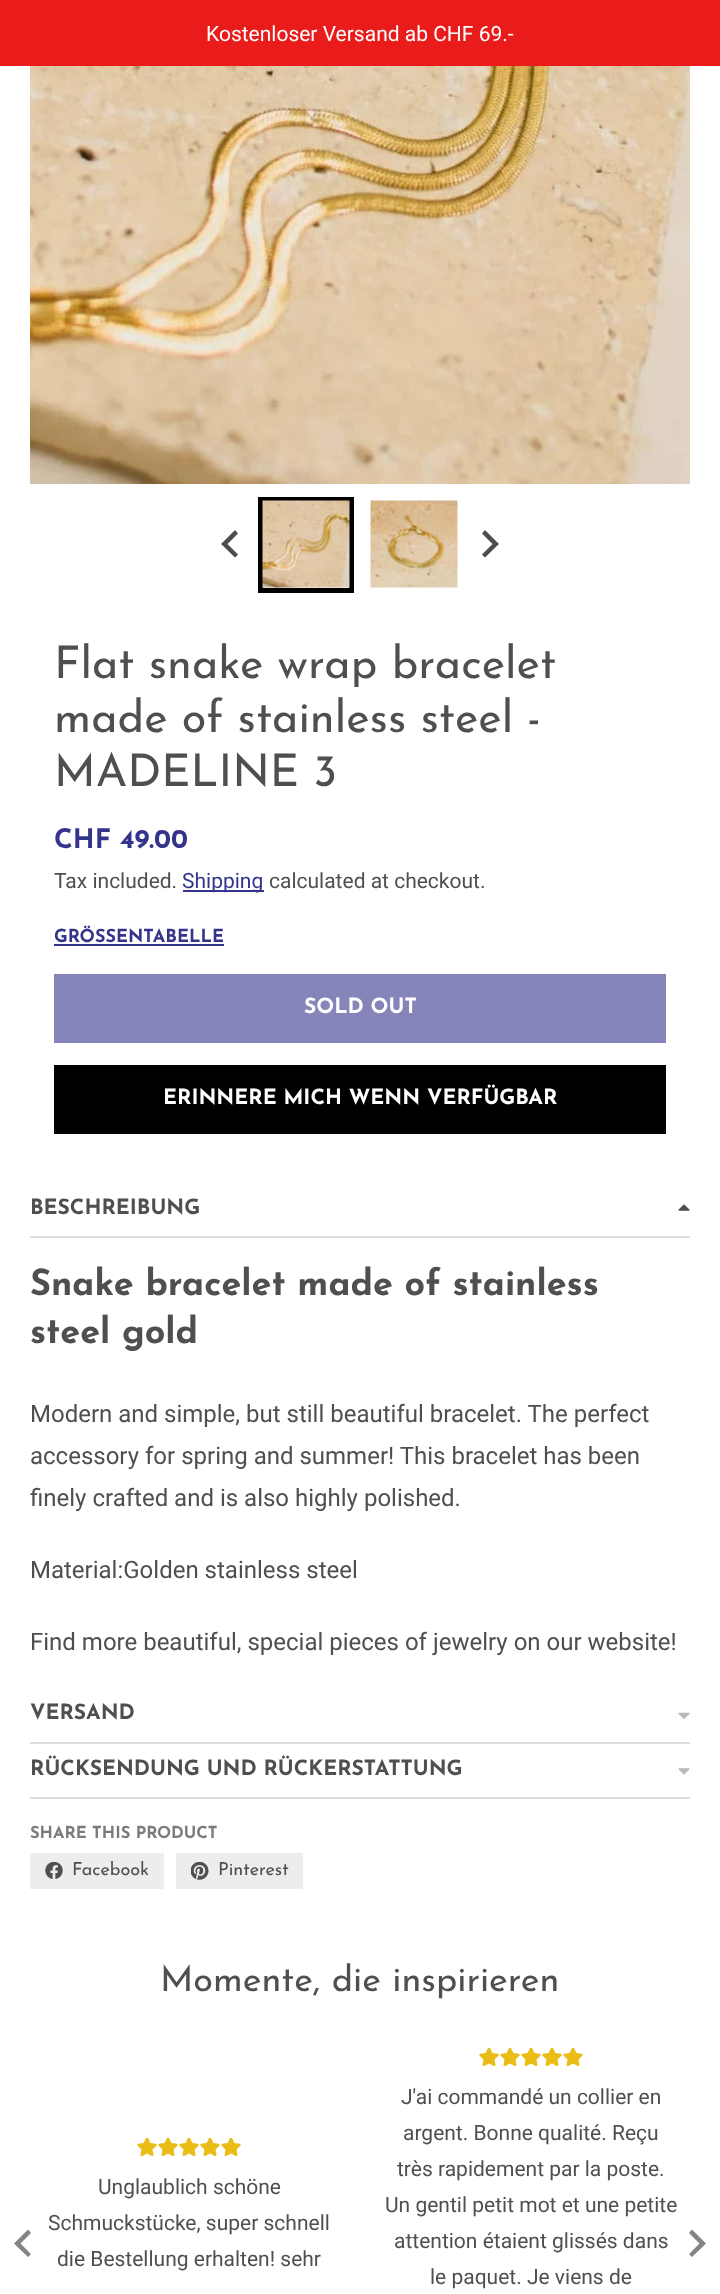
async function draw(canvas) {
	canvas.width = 720;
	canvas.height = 2294;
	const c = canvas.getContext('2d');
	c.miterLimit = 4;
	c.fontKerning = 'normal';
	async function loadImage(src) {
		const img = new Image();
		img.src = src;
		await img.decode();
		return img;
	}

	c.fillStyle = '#fff';
	c.fillRect(0, 0, 720, 2294);
	c.fillStyle = '#ea1b1b';
	c.fillRect(0, 0, 720, 66);
	c.font = '21px Roboto';
	c.fillStyle = '#fff';
	c.fillText('Kostenloser Versand ab CHF 69.-', 206, 41);
	c.drawImage(await loadImage('img1.png'), 30, 66, 660, 418);
	c.strokeStyle = '#000';
	c.lineWidth = 5;
	c.strokeRect(260.5, 499.5, 91, 91);
	c.drawImage(await loadImage('img2.png'), 262, 500, 88, 88);
	c.drawImage(await loadImage('img3.png'), 370, 500, 88, 88);
	c.fillStyle = '#4d4d4d';
	c.beginPath();
	c.moveTo(235, 530);
	c.lineTo(238, 533.5);
	c.lineTo(227.5, 544);
	c.lineTo(238, 554.5);
	c.lineTo(235, 557.5);
	c.lineTo(221, 544);
	c.closePath();
	c.fill();
	c.beginPath();
	c.moveTo(485, 530);
	c.lineTo(482, 533.5);
	c.lineTo(492.5, 544);
	c.lineTo(482, 554.5);
	c.lineTo(485, 557.5);
	c.lineTo(499, 544);
	c.closePath();
	c.fill();
	c.font = '45px Josefin Sans';
	c.fillStyle = '#4f4f4f';
	for (const [text, x, y] of [
		['Flat snake wrap bracelet', 54, 678],
		['made of stainless steel -', 54, 732],
		['MADELINE 3', 54, 786],
	]) {
		c.fillText(text, x, y);
	}
	c.font = 'bold 27px Josefin Sans';
	c.fillStyle = '#34348c';
	c.fillText('CHF 49.00', 54, 848);
	c.font = '21px Roboto';
	c.fillStyle = '#4f4f4f';
	c.fillText('Tax included.', 54, 888);
	c.fillStyle = '#34348c';
	c.fillRect(183, 890, 81, 2);
	c.fillText('Shipping', 182, 888);
	c.fillStyle = '#4f4f4f';
	c.fillText('calculated at checkout.', 269, 888);
	c.font = 'bold 18px Josefin Sans';
	c.fillStyle = '#34348c';
	c.fillText('GRÖSSENTABELLE', 54, 942);
	c.fillRect(54, 944, 170, 2);
	c.fillStyle = '#8585ba';
	c.fillRect(54, 974, 612, 69);
	c.font = 'bold 21px Josefin Sans';
	c.fillStyle = '#fff';
	c.fillText('SOLD OUT', 304, 1013);
	c.fillStyle = '#000';
	c.fillRect(54, 1065, 612, 69);
	c.fillStyle = '#fff';
	c.fillText('ERINNERE MICH WENN VERFÜGBAR', 163, 1104);
	c.fillStyle = '#dcdcdc';
	c.fillRect(30, 1236, 660, 2);
	c.fillStyle = '#4f4f4f';
	c.fillText('BESCHREIBUNG', 30, 1214);
	c.drawImage(await loadImage('img4.png'), 678, 1204, 12, 7);
	c.font = 'bold 36px Josefin Sans';
	c.fillText('Snake bracelet made of stainless', 30, 1295);
	c.fillText('steel gold', 30, 1343);
	c.font = '24px Roboto';
	for (const [text, x, y] of [
		['Modern and simple, but still beautiful bracelet. The perfect', 30, 1422],
		['accessory for spring and summer! This bracelet has been', 30, 1464],
		['finely crafted and is also highly polished.', 30, 1506],
		['Material:Golden stainless steel', 30, 1578],
		['Find more beautiful, special pieces of jewelry on our website!', 30, 1650],
	]) {
		c.fillText(text, x, y);
	}
	c.fillStyle = '#dcdcdc';
	c.fillRect(30, 1742, 660, 2);
	c.font = 'bold 21px Josefin Sans';
	c.fillStyle = '#4f4f4f';
	c.fillText('VERSAND', 30, 1719);
	c.drawImage(await loadImage('img5.png'), 678, 1712, 12, 7);
	c.fillStyle = '#dcdcdc';
	c.fillRect(30, 1797, 660, 2);
	c.fillStyle = '#4f4f4f';
	c.fillText('RÜCKSENDUNG UND RÜCKERSTATTUNG', 30, 1775);
	c.drawImage(await loadImage('img6.png'), 678, 1768, 12, 7);
	c.font = 'bold 16.5px Josefin Sans';
	c.fillStyle = '#7b7b7b';
	c.fillText('SHARE THIS PRODUCT', 30, 1838);
	c.fillStyle = '#ededed';
	c.fillRect(30, 1853, 134, 36);
	c.drawImage(await loadImage('img7.png'), 45, 1862, 18, 17);
	c.font = '18px Josefin Sans';
	c.fillStyle = '#4f4f4f';
	c.fillText('Facebook', 72, 1875);
	c.fillStyle = '#ededed';
	c.fillRect(176, 1853, 127, 36);
	c.drawImage(await loadImage('img8.png'), 191, 1862, 18, 18);
	c.fillStyle = '#4f4f4f';
	c.fillText('Pinterest', 218, 1875);
	c.font = '36px Josefin Sans';
	c.fillText('Momente, die inspirieren', 160, 1991);
	c.drawImage(await loadImage('img9.png'), 137, 2138, 20, 19);
	c.drawImage(await loadImage('img9.png'), 158, 2138, 20, 19);
	c.drawImage(await loadImage('img9.png'), 179, 2138, 20, 19);
	c.drawImage(await loadImage('img9.png'), 200, 2138, 20, 19);
	c.drawImage(await loadImage('img9.png'), 221, 2138, 20, 19);
	c.font = '21px Roboto';
	for (const [text, x, y] of [
		['Unglaublich schöne', 98, 2194],
		['Schmuckstücke, super schnell', 48, 2230],
		['die Bestellung erhalten! sehr', 57, 2266],
	]) {
		c.fillText(text, x, y);
	}
	c.drawImage(await loadImage('img9.png'), 479, 2048, 20, 19);
	c.drawImage(await loadImage('img9.png'), 500, 2048, 20, 19);
	c.drawImage(await loadImage('img9.png'), 521, 2048, 20, 19);
	c.drawImage(await loadImage('img9.png'), 542, 2048, 20, 19);
	c.drawImage(await loadImage('img9.png'), 563, 2048, 20, 19);
	for (const [text, x, y] of [
		['J\'ai commandé un collier en', 401, 2104],
		['argent. Bonne qualité. Reçu', 403, 2140],
		['très rapidement par la poste.', 397, 2176],
		['Un gentil petit mot et une petite', 385, 2212],
		['attention étaient glissés dans', 394, 2248],
		['le paquet. Je viens de', 430, 2284],
	]) {
		c.fillText(text, x, y);
	}
	c.fillStyle = '#848484';
	c.beginPath();
	c.moveTo(28, 2229.5);
	c.lineTo(31, 2233);
	c.lineTo(20.5, 2243.5);
	c.lineTo(31, 2254);
	c.lineTo(28, 2257);
	c.lineTo(14, 2243.5);
	c.closePath();
	c.fill();
	c.beginPath();
	c.moveTo(692, 2229.5);
	c.lineTo(689, 2233);
	c.lineTo(699.5, 2243.5);
	c.lineTo(689, 2254);
	c.lineTo(692, 2257);
	c.lineTo(706, 2243.5);
	c.closePath();
	c.fill();
}

draw(document.querySelector('canvas'));
